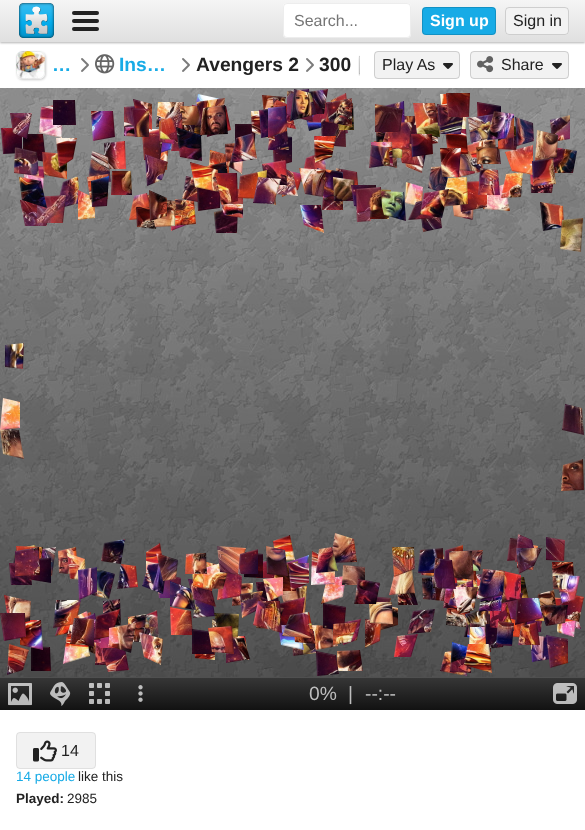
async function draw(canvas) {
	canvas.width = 585;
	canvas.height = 830;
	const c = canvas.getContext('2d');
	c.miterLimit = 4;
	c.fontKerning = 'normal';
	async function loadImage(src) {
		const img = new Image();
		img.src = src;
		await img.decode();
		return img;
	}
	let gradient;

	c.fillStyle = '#fff';
	c.fillRect(0, 0, 585, 830);
	c.fillStyle = '#0000004d';
	c.filter = 'blur(1px)';
	c.beginPath();
	c.rect(0, 1, 585, 42);
	c.fill();
	c.filter = 'none';
	gradient = c.createLinearGradient(293, 0, 293, 42);
	gradient.addColorStop(0, '#f5f5f5');
	gradient.addColorStop(1, '#e0e0e0');
	c.fillStyle = gradient;
	c.fillRect(0, 0, 585, 42);
	c.drawImage(await loadImage('img1.png'), 19, 3, 35, 35);
	c.fillStyle = '#222';
	c.beginPath();
	c.roundRect(72, 11, 27, 4, 2);
	c.fill();
	c.beginPath();
	c.roundRect(72, 19, 27, 4, 2);
	c.fill();
	c.beginPath();
	c.roundRect(72, 27, 27, 4, 2);
	c.fill();
	c.fillStyle = '#fff';
	c.beginPath();
	c.roundRect(283, 3, 128, 35, 4);
	c.fill();
	c.beginPath();
	c.roundRect(283.5, 3.5, 127, 34, 3.5);
	c.strokeStyle = '#00000012';
	c.stroke();
	c.font = '16px Liberation Sans';
	c.fillStyle = '#757575';
	c.fillText('Search...', 294, 26);
	c.fillStyle = '#17abe6';
	c.beginPath();
	c.roundRect(422, 7, 74, 28, 4);
	c.fill();
	c.beginPath();
	c.roundRect(422.5, 7.5, 73, 27, 3.5);
	c.strokeStyle = '#00000026';
	c.stroke();
	c.font = 'bold 16px Liberation Sans';
	c.fillStyle = '#fff';
	c.fillText('Sign up', 430, 26);
	c.fillStyle = '#f2f2f2';
	c.beginPath();
	c.roundRect(505, 7, 64, 28, 4);
	c.fill();
	c.beginPath();
	c.roundRect(505.5, 7.5, 63, 27, 3.5);
	c.stroke();
	c.font = '16px Liberation Sans';
	c.fillStyle = '#222';
	c.fillText('Sign in', 513, 26);
	c.save();
	c.beginPath();
	c.moveTo(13, 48);
	c.lineTo(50, 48);
	c.lineTo(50, 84);
	c.lineTo(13, 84);
	c.closePath();
	c.moveTo(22, 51);
	c.lineTo(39, 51);
	c.bezierCurveTo(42.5, 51, 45, 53.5, 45, 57);
	c.lineTo(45, 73);
	c.bezierCurveTo(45, 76.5, 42.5, 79, 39, 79);
	c.lineTo(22, 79);
	c.bezierCurveTo(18.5, 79, 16, 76.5, 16, 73);
	c.lineTo(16, 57);
	c.bezierCurveTo(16, 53.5, 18.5, 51, 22, 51);
	c.closePath();
	c.clip('evenodd');
	c.fillStyle = '#00000033';
	c.filter = 'blur(1px)';
	c.beginPath();
	c.roundRect(17, 52, 29, 28, 6);
	c.fill();
	c.filter = 'none';
	c.restore();
	c.drawImage(await loadImage('img2.png'), 16, 51, 29, 28);
	c.beginPath();
	c.roundRect(16.5, 51.5, 28, 27, 5.5);
	c.strokeStyle = '#00000012';
	c.stroke();
	c.font = 'bold 19.25px Liberation Sans';
	c.fillStyle = '#17abe6';
	c.fillText('…', 52, 71);
	c.drawImage(await loadImage('img3.png'), 81, 58, 8, 14);
	c.drawImage(await loadImage('img4.png'), 95, 54, 20, 20);
	c.fillText('Ins…', 119, 71);
	c.drawImage(await loadImage('img3.png'), 182, 58, 8, 14);
	c.fillStyle = '#222';
	c.fillText('Avengers 2', 196, 71);
	c.drawImage(await loadImage('img3.png'), 306, 58, 8, 14);
	c.fillText('300', 319, 71);
	c.drawImage(await loadImage('img5.png'), 358, 55, 2, 21);
	c.fillStyle = '#f2f2f2';
	c.beginPath();
	c.roundRect(374, 51, 86, 28, 4);
	c.fill();
	c.beginPath();
	c.roundRect(374.5, 51.5, 85, 27, 3.5);
	c.strokeStyle = '#00000026';
	c.stroke();
	c.font = '16px Liberation Sans';
	c.fillStyle = '#222';
	c.fillText('Play As', 382, 70);
	c.drawImage(await loadImage('img6.png'), 443, 63, 10, 6);
	c.fillStyle = '#f2f2f2';
	c.beginPath();
	c.roundRect(470, 51, 99, 28, 4);
	c.fill();
	c.beginPath();
	c.roundRect(470.5, 51.5, 98, 27, 3.5);
	c.stroke();
	c.drawImage(await loadImage('img7.png'), 477, 56, 17, 17);
	c.fillStyle = '#222';
	c.fillText('Share', 501, 70);
	c.drawImage(await loadImage('img6.png'), 552, 63, 10, 6);
	c.drawImage(await loadImage('img8.png'), 0, 88, 585, 589);
	c.drawImage(await loadImage('img12.png'), 262, 95, 24, 15);
	c.drawImage(await loadImage('img53.png'), 235, 124, 21, 22);
	c.drawImage(await loadImage('img71.png'), 272, 136, 20, 28);
	c.drawImage(await loadImage('img61.png'), 268, 127, 21, 23);
	c.drawImage(await loadImage('img43.png'), 251, 111, 24, 30);
	c.drawImage(await loadImage('img21.png'), 273, 98, 23, 31);
	c.drawImage(await loadImage('img22.png'), 306, 102, 24, 29);
	c.drawImage(await loadImage('img9.png'), 287, 89, 26, 33);
	c.drawImage(await loadImage('img44.png'), 327, 111, 21, 23);
	c.drawImage(await loadImage('img54.png'), 321, 118, 25, 29);
	c.drawImage(await loadImage('img14.png'), 325, 93, 22, 30);
	c.drawImage(await loadImage('img13.png'), 306, 89, 22, 25);
	c.drawImage(await loadImage('img10.png'), 290, 89, 27, 32);
	c.drawImage(await loadImage('img11.png'), 195, 94, 26, 12);
	c.drawImage(await loadImage('img15.png'), 440, 94, 8, 12);
	c.drawImage(await loadImage('img45.png'), 404, 116, 13, 28);
	c.drawImage(await loadImage('img56.png'), 438, 124, 2, 10);
	c.drawImage(await loadImage('img38.png'), 414, 106, 26, 20);
	c.drawImage(await loadImage('img75.png'), 432, 136, 6, 8);
	c.drawImage(await loadImage('img32.png'), 413, 103, 27, 34);
	c.drawImage(await loadImage('img46.png'), 461, 117, 6, 12);
	c.drawImage(await loadImage('img76.png'), 472, 138, 24, 9);
	c.drawImage(await loadImage('img106.png'), 456, 164, 28, 14);
	c.drawImage(await loadImage('img78.png'), 459, 141, 24, 31);
	c.drawImage(await loadImage('img63.png'), 445, 129, 23, 25);
	c.drawImage(await loadImage('img33.png'), 437, 104, 26, 30);
	c.drawImage(await loadImage('img25.png'), 477, 102, 24, 15);
	c.drawImage(await loadImage('img47.png'), 468, 114, 26, 29);
	c.drawImage(await loadImage('img16.png'), 446, 93, 24, 24);
	c.drawImage(await loadImage('img26.png'), 39, 105, 24, 33);
	c.drawImage(await loadImage('img17.png'), 53, 100, 23, 25);
	c.drawImage(await loadImage('img27.png'), 124, 106, 12, 31);
	c.drawImage(await loadImage('img85.png'), 160, 150, 9, 20);
	c.drawImage(await loadImage('img59.png'), 149, 129, 23, 25);
	c.drawImage(await loadImage('img18.png'), 133, 99, 19, 31);
	c.drawImage(await loadImage('img19.png'), 156, 102, 28, 25);
	c.drawImage(await loadImage('img28.png'), 191, 105, 6, 1);
	c.drawImage(await loadImage('img35.png'), 180, 106, 23, 30);
	c.drawImage(await loadImage('img36.png'), 206, 106, 25, 31);
	c.drawImage(await loadImage('img20.png'), 196, 98, 29, 27);
	c.drawImage(await loadImage('img30.png'), 338, 103, 16, 27);
	c.drawImage(await loadImage('img23.png'), 326, 98, 26, 29);
	c.drawImage(await loadImage('img24.png'), 384, 101, 21, 22);
	c.drawImage(await loadImage('img52.png'), 171, 125, 24, 26);
	c.drawImage(await loadImage('img69.png'), 142, 133, 21, 28);
	c.drawImage(await loadImage('img51.png'), 159, 118, 16, 26);
	c.drawImage(await loadImage('img42.png'), 160, 113, 23, 27);
	c.drawImage(await loadImage('img60.png'), 176, 127, 26, 34);
	c.drawImage(await loadImage('img29.png'), 200, 105, 28, 30);
	c.drawImage(await loadImage('img65.png'), 381, 132, 5, 2);
	c.drawImage(await loadImage('img77.png'), 373, 141, 24, 27);
	c.drawImage(await loadImage('img96.png'), 405, 155, 21, 18);
	c.drawImage(await loadImage('img81.png'), 400, 144, 25, 22);
	c.drawImage(await loadImage('img62.png'), 376, 132, 27, 26);
	c.drawImage(await loadImage('img73.png'), 382, 132, 20, 18);
	c.drawImage(await loadImage('img74.png'), 411, 134, 22, 23);
	c.drawImage(await loadImage('img55.png'), 388, 122, 25, 26);
	c.drawImage(await loadImage('img31.png'), 375, 104, 28, 28);
	c.drawImage(await loadImage('img34.png'), 131, 108, 18, 29);
	c.drawImage(await loadImage('img40.png'), 259, 109, 22, 29);
	c.drawImage(await loadImage('img37.png'), 268, 106, 19, 32);
	c.drawImage(await loadImage('img39.png'), 91, 111, 24, 30);
	c.drawImage(await loadImage('img58.png'), 1, 128, 21, 26);
	c.drawImage(await loadImage('img66.png'), 23, 134, 22, 28);
	c.drawImage(await loadImage('img41.png'), 10, 113, 22, 26);
	c.drawImage(await loadImage('img89.png'), 476, 147, 25, 17);
	c.drawImage(await loadImage('img91.png'), 552, 147, 25, 26);
	c.drawImage(await loadImage('img108.png'), 530, 169, 25, 24);
	c.drawImage(await loadImage('img125.png'), 483, 184, 27, 27);
	c.drawImage(await loadImage('img114.png'), 501, 172, 22, 26);
	c.drawImage(await loadImage('img90.png'), 505, 145, 28, 30);
	c.drawImage(await loadImage('img57.png'), 498, 126, 19, 24);
	c.drawImage(await loadImage('img48.png'), 487, 111, 27, 29);
	c.drawImage(await loadImage('img49.png'), 515, 117, 19, 29);
	c.drawImage(await loadImage('img50.png'), 550, 115, 20, 27);
	c.drawImage(await loadImage('img64.png'), 535, 130, 23, 31);
	c.drawImage(await loadImage('img98.png'), 23, 165, 22, 28);
	c.drawImage(await loadImage('img109.png'), 59, 176, 21, 31);
	c.drawImage(await loadImage('img83.png'), 42, 152, 25, 27);
	c.drawImage(await loadImage('img67.png'), 56, 138, 21, 30);
	c.drawImage(await loadImage('img68.png'), 104, 141, 22, 28);
	c.drawImage(await loadImage('img86.png'), 208, 150, 21, 23);
	c.drawImage(await loadImage('img99.png'), 204, 162, 24, 11);
	c.drawImage(await loadImage('img79.png'), 225, 143, 19, 31);
	c.drawImage(await loadImage('img70.png'), 230, 133, 27, 30);
	c.drawImage(await loadImage('img95.png'), 301, 154, 25, 28);
	c.drawImage(await loadImage('img72.png'), 314, 136, 22, 27);
	c.drawImage(await loadImage('img80.png'), 371, 142, 22, 24);
	c.drawImage(await loadImage('img82.png'), 14, 147, 25, 29);
	c.drawImage(await loadImage('img84.png'), 88, 151, 23, 31);
	c.drawImage(await loadImage('img87.png'), 369, 145, 21, 23);
	c.drawImage(await loadImage('img105.png'), 428, 166, 20, 25);
	c.drawImage(await loadImage('img88.png'), 440, 148, 21, 29);
	c.drawImage(await loadImage('img92.png'), 145, 154, 23, 32);
	c.drawImage(await loadImage('img144.png'), 170, 224, 19, 7);
	c.drawImage(await loadImage('img140.png'), 174, 199, 22, 27);
	c.drawImage(await loadImage('img117.png'), 182, 176, 16, 26);
	c.drawImage(await loadImage('img145.png'), 214, 210, 24, 23);
	c.drawImage(await loadImage('img126.png'), 220, 189, 23, 29);
	c.drawImage(await loadImage('img118.png'), 197, 186, 24, 25);
	c.drawImage(await loadImage('img93.png'), 190, 162, 29, 30);
	c.drawImage(await loadImage('img113.png'), 281, 170, 21, 27);
	c.drawImage(await loadImage('img101.png'), 276, 169, 22, 27);
	c.drawImage(await loadImage('img94.png'), 262, 160, 25, 25);
	c.drawImage(await loadImage('img97.png'), 532, 158, 24, 28);
	c.drawImage(await loadImage('img137.png'), 252, 197, 24, 8);
	c.drawImage(await loadImage('img100.png'), 238, 170, 29, 29);
	c.drawImage(await loadImage('img104.png'), 336, 168, 23, 17);
	c.drawImage(await loadImage('img141.png'), 322, 197, 21, 13);
	c.drawImage(await loadImage('img138.png'), 324, 195, 10, 6);
	c.drawImage(await loadImage('img103.png'), 317, 168, 26, 30);
	c.drawImage(await loadImage('img102.png'), 299, 168, 27, 29);
	c.drawImage(await loadImage('img149.png'), 452, 204, 22, 16);
	c.drawImage(await loadImage('img124.png'), 460, 181, 27, 31);
	c.drawImage(await loadImage('img107.png'), 478, 168, 22, 27);
	c.drawImage(await loadImage('img128.png'), 78, 190, 17, 30);
	c.drawImage(await loadImage('img110.png'), 87, 174, 21, 26);
	c.drawImage(await loadImage('img136.png'), 147, 194, 3, 12);
	c.drawImage(await loadImage('img129.png'), 129, 193, 21, 27);
	c.drawImage(await loadImage('img111.png'), 111, 171, 21, 24);
	c.drawImage(await loadImage('img112.png'), 215, 173, 23, 32);
	c.drawImage(await loadImage('img134.png'), 20, 196, 29, 30);
	c.drawImage(await loadImage('img135.png'), 37, 195, 29, 28);
	c.drawImage(await loadImage('img115.png'), 19, 177, 28, 31);
	c.drawImage(await loadImage('img116.png'), 91, 176, 18, 31);
	c.drawImage(await loadImage('img119.png'), 253, 177, 28, 27);
	c.drawImage(await loadImage('img120.png'), 333, 177, 22, 24);
	c.drawImage(await loadImage('img147.png'), 356, 206, 15, 16);
	c.drawImage(await loadImage('img131.png'), 370, 189, 21, 30);
	c.drawImage(await loadImage('img121.png'), 351, 185, 25, 22);
	c.drawImage(await loadImage('img122.png'), 405, 182, 18, 24);
	c.drawImage(await loadImage('img123.png'), 444, 177, 24, 30);
	c.drawImage(await loadImage('img132.png'), 381, 191, 25, 30);
	c.drawImage(await loadImage('img127.png'), 356, 187, 26, 26);
	c.drawImage(await loadImage('img143.png'), 136, 207, 21, 22);
	c.drawImage(await loadImage('img139.png'), 153, 200, 23, 27);
	c.drawImage(await loadImage('img130.png'), 149, 190, 18, 31);
	c.drawImage(await loadImage('img148.png'), 419, 201, 23, 31);
	c.drawImage(await loadImage('img142.png'), 408, 200, 29, 20);
	c.drawImage(await loadImage('img133.png'), 420, 189, 29, 29);
	c.drawImage(await loadImage('img146.png'), 300, 205, 24, 28);
	c.drawImage(await loadImage('img150.png'), 540, 202, 24, 29);
	c.drawImage(await loadImage('img151.png'), 560, 218, 23, 34);
	c.drawImage(await loadImage('img152.png'), 5, 343, 19, 26);
	c.drawImage(await loadImage('img155.png'), 0, 428, 24, 31);
	c.drawImage(await loadImage('img153.png'), 0, 398, 20, 32);
	c.drawImage(await loadImage('img154.png'), 562, 404, 22, 31);
	c.drawImage(await loadImage('img156.png'), 561, 459, 23, 32);
	c.drawImage(await loadImage('img157.png'), 273, 535, 22, 26);
	c.drawImage(await loadImage('img158.png'), 332, 533, 25, 30);
	c.drawImage(await loadImage('img162.png'), 507, 538, 24, 23);
	c.drawImage(await loadImage('img166.png'), 517, 542, 21, 28);
	c.drawImage(await loadImage('img159.png'), 515, 534, 22, 28);
	c.drawImage(await loadImage('img160.png'), 546, 537, 19, 24);
	c.drawImage(await loadImage('img161.png'), 101, 539, 24, 25);
	c.drawImage(await loadImage('img163.png'), 12, 545, 24, 19);
	c.drawImage(await loadImage('img164.png'), 146, 543, 16, 29);
	c.drawImage(await loadImage('img188.png'), 443, 556, 2, 4);
	c.drawImage(await loadImage('img165.png'), 444, 545, 19, 15);
	c.drawImage(await loadImage('img171.png'), 41, 547, 15, 29);
	c.drawImage(await loadImage('img167.png'), 16, 546, 27, 13);
	c.drawImage(await loadImage('img192.png'), 256, 561, 19, 17);
	c.drawImage(await loadImage('img182.png'), 244, 552, 19, 26);
	c.drawImage(await loadImage('img228.png'), 193, 595, 22, 23);
	c.drawImage(await loadImage('img208.png'), 188, 579, 28, 28);
	c.drawImage(await loadImage('img207.png'), 158, 576, 23, 22);
	c.drawImage(await loadImage('img247.png'), 170, 607, 23, 28);
	c.drawImage(await loadImage('img217.png'), 170, 581, 26, 29);
	c.drawImage(await loadImage('img191.png'), 192, 562, 24, 29);
	c.drawImage(await loadImage('img220.png'), 232, 583, 21, 23);
	c.drawImage(await loadImage('img200.png'), 217, 573, 25, 27);
	c.drawImage(await loadImage('img199.png'), 203, 563, 25, 26);
	c.drawImage(await loadImage('img168.png'), 217, 546, 29, 29);
	c.drawImage(await loadImage('img221.png'), 281, 586, 26, 27);
	c.drawImage(await loadImage('img183.png'), 286, 555, 23, 33);
	c.drawImage(await loadImage('img193.png'), 274, 561, 24, 30);
	c.drawImage(await loadImage('img169.png'), 266, 546, 22, 30);
	c.drawImage(await loadImage('img187.png'), 31, 558, 20, 25);
	c.drawImage(await loadImage('img189.png'), 9, 563, 23, 22);
	c.drawImage(await loadImage('img170.png'), 15, 547, 25, 29);
	c.drawImage(await loadImage('img172.png'), 58, 547, 19, 28);
	c.drawImage(await loadImage('img173.png'), 238, 549, 20, 25);
	c.drawImage(await loadImage('img210.png'), 321, 576, 24, 28);
	c.drawImage(await loadImage('img184.png'), 311, 551, 24, 34);
	c.drawImage(await loadImage('img174.png'), 316, 547, 22, 26);
	c.drawImage(await loadImage('img233.png'), 397, 592, 21, 13);
	c.drawImage(await loadImage('img203.png'), 389, 569, 26, 26);
	c.drawImage(await loadImage('img175.png'), 392, 547, 23, 30);
	c.drawImage(await loadImage('img185.png'), 420, 553, 25, 23);
	c.drawImage(await loadImage('img176.png'), 418, 548, 25, 25);
	c.drawImage(await loadImage('img213.png'), 454, 577, 4, 7);
	c.drawImage(await loadImage('img214.png'), 476, 573, 7, 25);
	c.drawImage(await loadImage('img212.png'), 422, 576, 24, 25);
	c.drawImage(await loadImage('img222.png'), 443, 582, 15, 26);
	c.drawImage(await loadImage('img204.png'), 456, 570, 22, 22);
	c.drawImage(await loadImage('img177.png'), 457, 550, 26, 21);
	c.drawImage(await loadImage('img215.png'), 521, 577, 8, 21);
	c.drawImage(await loadImage('img281.png'), 525, 622, 2, 3);
	c.drawImage(await loadImage('img268.png'), 510, 618, 16, 20);
	c.drawImage(await loadImage('img235.png'), 502, 592, 21, 28);
	c.drawImage(await loadImage('img237.png'), 554, 597, 7, 9);
	c.drawImage(await loadImage('img269.png'), 527, 619, 15, 13);
	c.drawImage(await loadImage('img224.png'), 535, 590, 21, 31);
	c.drawImage(await loadImage('img290.png'), 530, 635, 19, 27);
	c.drawImage(await loadImage('img272.png'), 518, 622, 22, 23);
	c.drawImage(await loadImage('img236.png'), 515, 598, 28, 27);
	c.drawImage(await loadImage('img251.png'), 446, 608, 25, 20);
	c.drawImage(await loadImage('img266.png'), 464, 621, 5, 16);
	c.drawImage(await loadImage('img278.png'), 467, 626, 3, 12);
	c.drawImage(await loadImage('img252.png'), 465, 610, 25, 25);
	c.drawImage(await loadImage('img279.png'), 470, 623, 21, 29);
	c.drawImage(await loadImage('img280.png'), 486, 624, 18, 25);
	c.drawImage(await loadImage('img241.png'), 490, 603, 24, 28);
	c.drawImage(await loadImage('img206.png'), 498, 570, 23, 34);
	c.drawImage(await loadImage('img178.png'), 516, 548, 26, 26);
	c.drawImage(await loadImage('img179.png'), 67, 553, 19, 27);
	c.drawImage(await loadImage('img190.png'), 142, 563, 23, 31);
	c.drawImage(await loadImage('img180.png'), 156, 553, 22, 28);
	c.drawImage(await loadImage('img181.png'), 185, 553, 22, 21);
	c.drawImage(await loadImage('img186.png'), 449, 551, 25, 29);
	c.drawImage(await loadImage('img219.png'), 448, 580, 27, 28);
	c.drawImage(await loadImage('img223.png'), 453, 587, 25, 27);
	c.drawImage(await loadImage('img194.png'), 433, 558, 23, 31);
	c.drawImage(await loadImage('img195.png'), 552, 562, 22, 28);
	c.drawImage(await loadImage('img197.png'), 92, 569, 23, 30);
	c.drawImage(await loadImage('img196.png'), 78, 567, 19, 33);
	c.drawImage(await loadImage('img198.png'), 117, 564, 21, 25);
	c.drawImage(await loadImage('img201.png'), 288, 563, 21, 28);
	c.drawImage(await loadImage('img202.png'), 342, 565, 23, 20);
	c.drawImage(await loadImage('img234.png'), 479, 595, 24, 16);
	c.drawImage(await loadImage('img205.png'), 477, 569, 28, 30);
	c.drawImage(await loadImage('img218.png'), 256, 582, 23, 19);
	c.drawImage(await loadImage('img231.png'), 280, 597, 25, 28);
	c.drawImage(await loadImage('img209.png'), 263, 577, 20, 24);
	c.drawImage(await loadImage('img249.png'), 380, 606, 18, 25);
	c.drawImage(await loadImage('img265.png'), 365, 619, 16, 29);
	c.drawImage(await loadImage('img232.png'), 369, 596, 22, 29);
	c.drawImage(await loadImage('img240.png'), 369, 602, 24, 22);
	c.drawImage(await loadImage('img211.png'), 354, 579, 26, 25);
	c.drawImage(await loadImage('img243.png'), 560, 603, 21, 26);
	c.drawImage(await loadImage('img291.png'), 546, 635, 22, 33);
	c.drawImage(await loadImage('img270.png'), 557, 618, 20, 19);
	c.drawImage(await loadImage('img238.png'), 560, 595, 24, 27);
	c.drawImage(await loadImage('img216.png'), 555, 575, 25, 28);
	c.drawImage(await loadImage('img295.png'), 31, 646, 20, 25);
	c.drawImage(await loadImage('img261.png'), 20, 620, 23, 30);
	c.drawImage(await loadImage('img225.png'), 4, 595, 27, 28);
	c.drawImage(await loadImage('img253.png'), 77, 612, 15, 5);
	c.drawImage(await loadImage('img273.png'), 55, 624, 16, 12);
	c.drawImage(await loadImage('img244.png'), 65, 611, 24, 32);
	c.drawImage(await loadImage('img226.png'), 53, 600, 28, 28);
	c.drawImage(await loadImage('img227.png'), 103, 599, 18, 27);
	c.drawImage(await loadImage('img277.png'), 311, 625, 27, 26);
	c.drawImage(await loadImage('img287.png'), 292, 630, 24, 26);
	c.drawImage(await loadImage('img276.png'), 278, 625, 26, 25);
	c.drawImage(await loadImage('img248.png'), 256, 607, 28, 22);
	c.drawImage(await loadImage('img229.png'), 240, 591, 23, 27);
	c.drawImage(await loadImage('img230.png'), 253, 601, 29, 32);
	c.drawImage(await loadImage('img264.png'), 342, 619, 19, 26);
	c.drawImage(await loadImage('img239.png'), 323, 603, 23, 27);
	c.drawImage(await loadImage('img242.png'), 540, 605, 28, 21);
	c.drawImage(await loadImage('img293.png'), 95, 638, 6, 12);
	c.drawImage(await loadImage('img296.png'), 88, 642, 8, 12);
	c.drawImage(await loadImage('img282.png'), 63, 634, 27, 30);
	c.drawImage(await loadImage('img292.png'), 103, 637, 1, 1);
	c.drawImage(await loadImage('img297.png'), 100, 638, 1, 1);
	c.drawImage(await loadImage('img283.png'), 95, 636, 21, 29);
	c.drawImage(await loadImage('img257.png'), 81, 613, 20, 30);
	c.drawImage(await loadImage('img245.png'), 94, 609, 26, 31);
	c.drawImage(await loadImage('img246.png'), 146, 610, 13, 28);
	c.drawImage(await loadImage('img250.png'), 407, 609, 28, 25);
	c.drawImage(await loadImage('img260.png'), 294, 612, 22, 32);
	c.drawImage(await loadImage('img254.png'), 282, 612, 29, 26);
	c.drawImage(await loadImage('img255.png'), 488, 611, 2, 4);
	c.drawImage(await loadImage('img256.png'), 0, 613, 26, 28);
	c.drawImage(await loadImage('img258.png'), 128, 614, 24, 28);
	c.drawImage(await loadImage('img263.png'), 212, 619, 6, 9);
	c.drawImage(await loadImage('img286.png'), 232, 636, 17, 24);
	c.drawImage(await loadImage('img259.png'), 214, 613, 25, 24);
	c.drawImage(await loadImage('img262.png'), 70, 618, 24, 28);
	c.drawImage(await loadImage('img267.png'), 496, 621, 18, 25);
	c.drawImage(await loadImage('img271.png'), 333, 622, 25, 23);
	c.drawImage(await loadImage('img298.png'), 101, 648, 28, 24);
	c.drawImage(await loadImage('img274.png'), 109, 623, 27, 30);
	c.drawImage(await loadImage('img303.png'), 194, 652, 21, 8);
	c.drawImage(await loadImage('img285.png'), 192, 629, 22, 25);
	c.drawImage(await loadImage('img299.png'), 226, 638, 24, 25);
	c.drawImage(await loadImage('img275.png'), 208, 626, 26, 28);
	c.drawImage(await loadImage('img284.png'), 139, 632, 24, 33);
	c.drawImage(await loadImage('img288.png'), 394, 634, 24, 23);
	c.drawImage(await loadImage('img289.png'), 469, 627, 17, 17);
	c.drawImage(await loadImage('img294.png'), 7, 644, 22, 31);
	c.drawImage(await loadImage('img300.png'), 337, 650, 26, 21);
	c.drawImage(await loadImage('img305.png'), 440, 650, 27, 26);
	c.drawImage(await loadImage('img301.png'), 450, 642, 22, 31);
	c.drawImage(await loadImage('img302.png'), 464, 644, 28, 29);
	c.drawImage(await loadImage('img304.png'), 316, 651, 23, 25);
	gradient = c.createLinearGradient(293, 678, 293, 710);
	gradient.addColorStop(0, '#363636');
	gradient.addColorStop(1, '#121212');
	c.fillStyle = gradient;
	c.fillRect(0, 678, 585, 32);
	c.fillStyle = '#4f4f4f';
	c.fillRect(0, 677, 585, 1);
	c.drawImage(await loadImage('img306.png'), 8, 683, 24, 23);
	c.drawImage(await loadImage('img307.png'), 50, 682, 21, 24);
	c.drawImage(await loadImage('img308.png'), 89, 683, 21, 21);
	c.drawImage(await loadImage('img309.png'), 138, 685, 5, 17);
	c.font = '19.25px Liberation Sans';
	c.fillStyle = '#bebebe';
	for (const [text, x, y] of [
		['0%', 309, 700],
		['|', 348, 700],
		['--:--', 365, 700],
	]) {
		c.fillText(text, x, y);
	}
	c.drawImage(await loadImage('img310.png'), 553, 683, 24, 21);
	c.fillStyle = '#f2f2f2';
	c.beginPath();
	c.roundRect(16, 732, 80, 37, 4);
	c.fill();
	c.beginPath();
	c.roundRect(16.5, 732.5, 79, 36, 3.5);
	c.strokeStyle = '#00000012';
	c.stroke();
	c.drawImage(await loadImage('img311.png'), 33, 740, 24, 22);
	c.font = '16px Liberation Sans';
	c.fillStyle = '#222';
	c.fillText('14', 61, 756);
	c.font = '13.5px Liberation Sans';
	c.fillStyle = '#17abe6';
	c.fillText('14 people', 16, 781);
	c.fillStyle = '#222';
	c.fillText('like this', 78, 781);
	c.font = 'bold 13.5px Liberation Sans';
	c.fillText('Played:', 16, 803);
	c.font = '13.5px Liberation Sans';
	c.fillText('2985', 67, 803);
}

draw(document.querySelector('canvas'));
